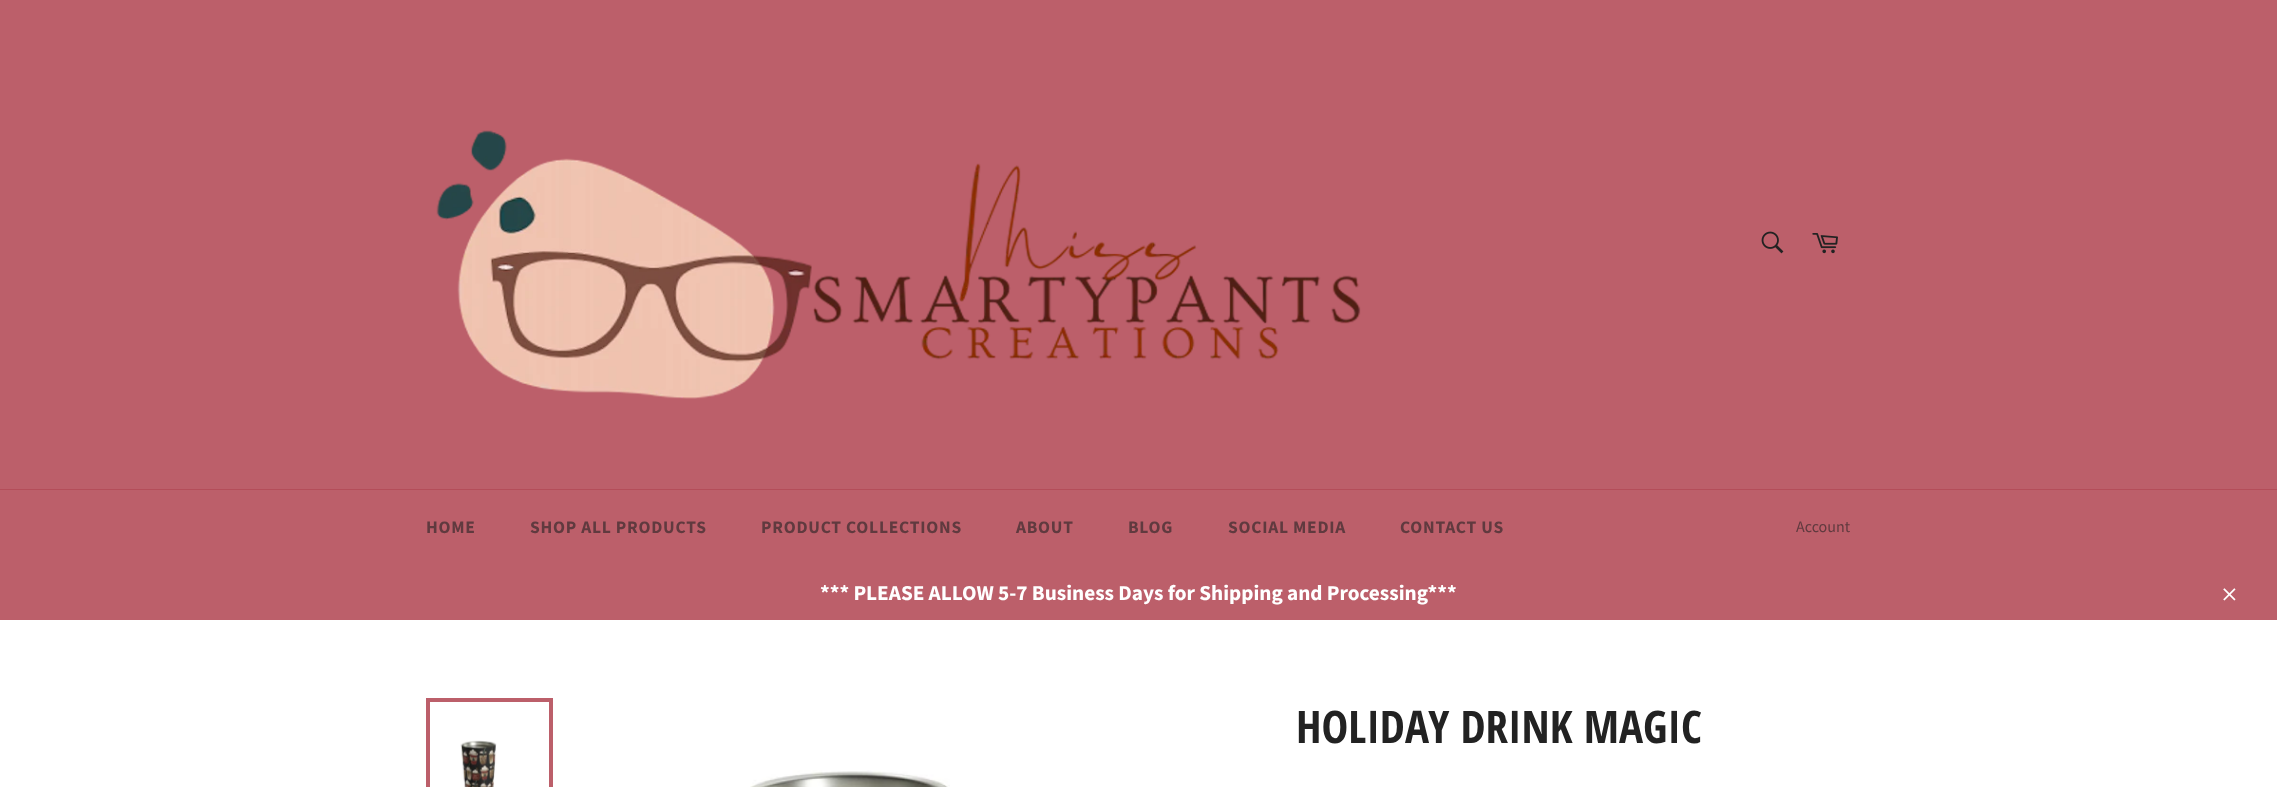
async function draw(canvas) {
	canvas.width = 2277;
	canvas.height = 787;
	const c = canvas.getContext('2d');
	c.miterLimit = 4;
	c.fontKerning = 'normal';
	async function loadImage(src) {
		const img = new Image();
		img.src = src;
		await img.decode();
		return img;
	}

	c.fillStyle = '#bc5f6a';
	c.fillRect(0, 0, 2277, 787);
	c.drawImage(await loadImage('img1.png'), 436, 130, 925, 269);
	c.drawImage(await loadImage('img2.png'), 1761, 231, 23, 23);
	c.drawImage(await loadImage('img3.png'), 1812, 233, 26, 21);
	c.fillStyle = '#b44d59';
	c.fillRect(0, 489, 2277, 1);
	c.letterSpacing = '0.75px';
	c.font = 'bold 17.5px Source Sans Pro';
	c.fillStyle = '#603a3f';
	for (const [text, x, y] of [
		['HOME', 426, 533],
		['SHOP ALL PRODUCTS', 530, 533],
		['PRODUCT COLLECTIONS', 761, 533],
		['ABOUT', 1016, 533],
		['BLOG', 1128, 533],
		['SOCIAL MEDIA', 1228, 533],
		['CONTACT US', 1400, 533],
	]) {
		c.fillText(text, x, y);
	}
	c.letterSpacing = '0px';
	c.font = '16px Source Sans Pro';
	c.fillText('Account', 1796, 532);
	c.font = 'bold 21.25px Source Sans Pro';
	c.fillStyle = '#fff';
	c.fillText('*** PLEASE ALLOW 5-7 Business Days for Shipping and Processing***', 820, 600);
	c.drawImage(await loadImage('img4.png'), 2223, 588, 13, 13);
	c.fillRect(0, 620, 2277, 167);
	c.drawImage(await loadImage('img5.png'), 460, 740, 37, 47);
	c.strokeStyle = '#bc5f6a';
	c.lineWidth = 4;
	c.strokeRect(428, 700, 123, 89);
	c.drawImage(await loadImage('img6.png'), 750, 770, 200, 17);
	c.font = 'bold 45px Open Sans Condensed';
	c.fillStyle = '#222';
	c.fillText('HOLIDAY DRINK MAGIC', 1296, 743);
}

draw(document.querySelector('canvas'));
